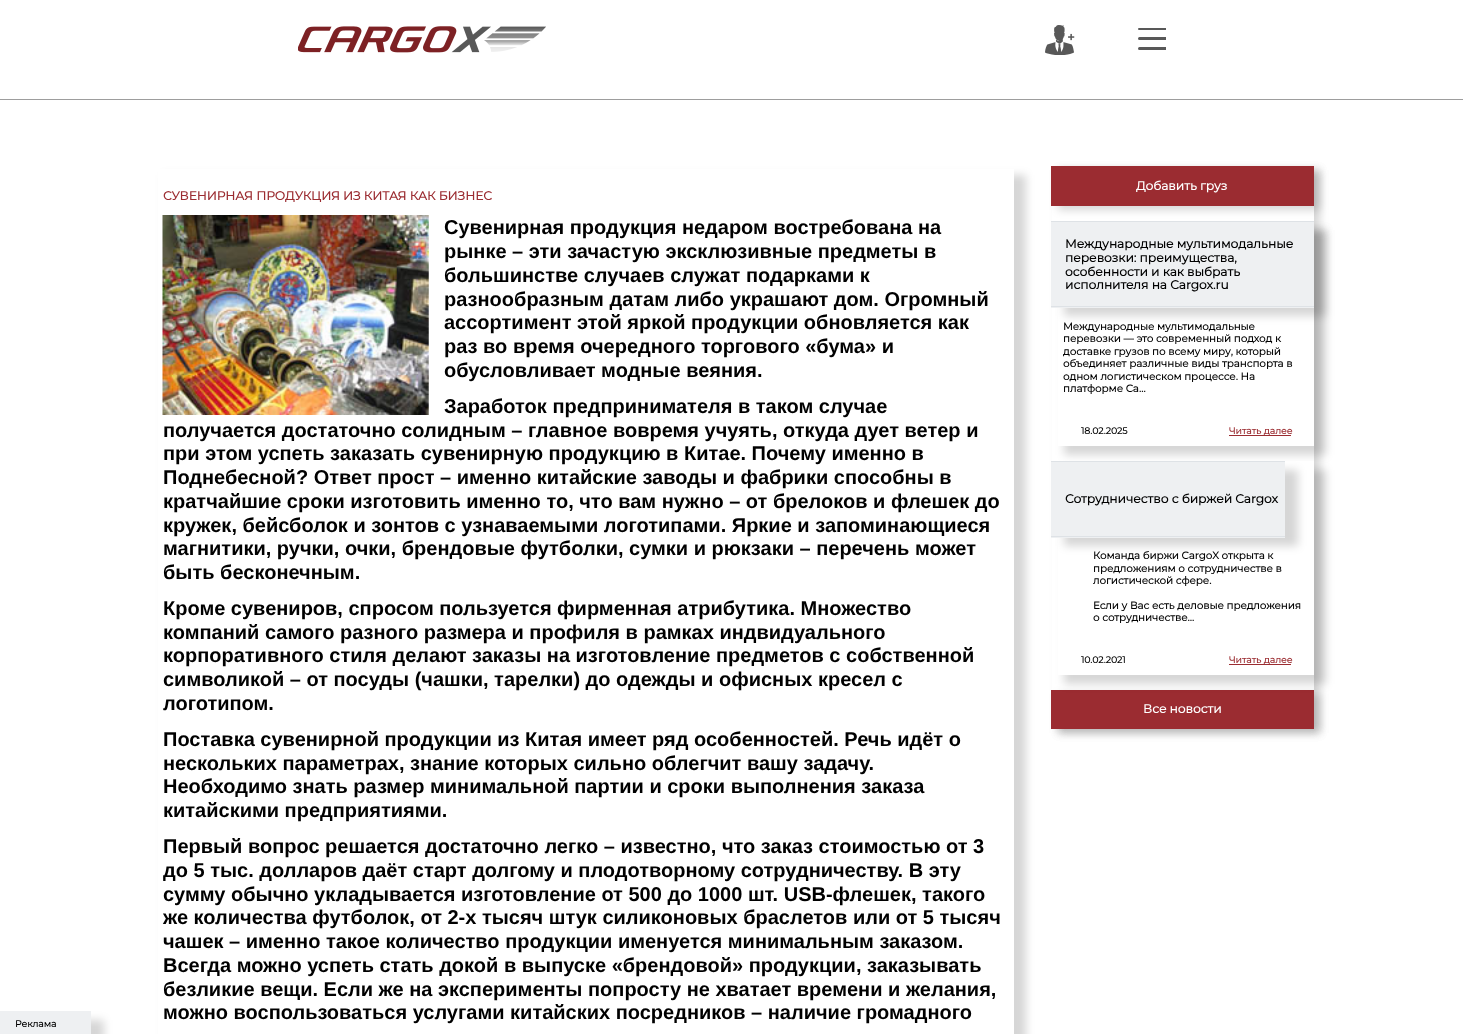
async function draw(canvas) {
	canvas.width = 1463;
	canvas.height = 1034;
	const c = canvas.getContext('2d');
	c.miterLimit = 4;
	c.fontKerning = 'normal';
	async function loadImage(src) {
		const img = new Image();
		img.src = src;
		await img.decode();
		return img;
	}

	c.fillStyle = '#fff';
	c.fillRect(0, 0, 1463, 1034);
	c.drawImage(await loadImage('img1.png'), 298, 26, 248, 27);
	c.drawImage(await loadImage('img2.png'), 1045, 25, 30, 30);
	c.fillStyle = '#585858';
	c.beginPath();
	c.roundRect(1138, 28, 28, 2, [1, 0, 0, 1]);
	c.fill();
	c.save();
	c.beginPath();
	c.rect(1138, 28, 28, 23);
	c.clip();
	c.beginPath();
	c.roundRect(1138, 37, 29, 3, 1.5);
	c.fill();
	c.beginPath();
	c.roundRect(1138, 47, 29, 3, 1.5);
	c.fill();
	c.restore();
	c.fillStyle = '#9d9d9d';
	c.fillRect(0, 99, 1463, 1);
	c.fillStyle = '#00000029';
	c.filter = 'blur(4px)';
	c.beginPath();
	c.rect(13, 1020, 91, 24);
	c.fill();
	c.filter = 'none';
	c.fillStyle = '#eef0f2';
	c.fillRect(0, 1011, 91, 23);
	c.font = 'bold 9.25px Montserrat';
	c.fillStyle = '#000';
	c.fillText('Реклама', 15, 1027);
	c.fillStyle = '#00000029';
	c.filter = 'blur(4px)';
	c.beginPath();
	c.rect(164, 175, 862, 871);
	c.fill();
	c.filter = 'none';
	c.fillStyle = '#fff';
	c.fillRect(158, 169, 856, 865);
	c.font = 'bold 12.2px Montserrat';
	c.fillStyle = '#9b2c31';
	c.fillText('СУВЕНИРНАЯ ПРОДУКЦИЯ ИЗ КИТАЯ КАК БИЗНЕС', 163, 200);
	c.drawImage(await loadImage('img3.png'), 162, 215, 267, 200);
	c.font = 'bold 20px Liberation Sans';
	c.fillStyle = '#000';
	for (const [text, x, y] of [
		['Сувенирная продукция недаром востребована на', 444, 234],
		['рынке – эти зачастую эксклюзивные предметы в', 444, 258],
		['большинстве случаев служат подарками к', 444, 282],
		['разнообразным датам либо украшают дом. Огромный', 444, 306],
		['ассортимент этой яркой продукции обновляется как', 444, 329],
		['раз во время очередного торгового «бума» и', 444, 353],
		['обусловливает модные веяния.', 444, 377],
		['Заработок предпринимателя в таком случае', 444, 413],
		['получается достаточно солидным – главное вовремя учуять, откуда дует ветер и', 163, 437],
		['при этом успеть заказать сувенирную продукцию в Китае. Почему именно в', 163, 460],
		['Поднебесной? Ответ прост – именно китайские заводы и фабрики способны в', 163, 484],
		['кратчайшие сроки изготовить именно то, что вам нужно – от брелоков и флешек до', 163, 508],
		['кружек, бейсболок и зонтов с узнаваемыми логотипами. Яркие и запоминающиеся', 163, 532],
		['магнитики, ручки, очки, брендовые футболки, сумки и рюкзаки – перечень может', 163, 555],
		['быть бесконечным.', 163, 579],
		['Кроме сувениров, спросом пользуется фирменная атрибутика. Множество', 163, 615],
		['компаний самого разного размера и профиля в рамках индвидуального', 163, 639],
		['корпоративного стиля делают заказы на изготовление предметов с собственной', 163, 662],
		['символикой – от посуды (чашки, тарелки) до одежды и офисных кресел с', 163, 686],
		['логотипом.', 163, 710],
		['Поставка сувенирной продукции из Китая имеет ряд особенностей. Речь идёт о', 163, 746],
		['нескольких параметрах, знание которых сильно облегчит вашу задачу.', 163, 770],
		['Необходимо знать размер минимальной партии и сроки выполнения заказа', 163, 793],
		['китайскими предприятиями.', 163, 817],
		['Первый вопрос решается достаточно легко – известно, что заказ стоимостью от 3', 163, 853],
		['до 5 тыс. долларов даёт старт долгому и плодотворному сотрудничеству. В эту', 163, 877],
		['сумму обычно укладывается изготовление от 500 до 1000 шт. USB-флешек, такого', 163, 901],
		['же количества футболок, от 2-х тысяч штук силиконовых браслетов или от 5 тысяч', 163, 924],
		['чашек – именно такое количество продукции именуется минимальным заказом.', 163, 948],
		['Всегда можно успеть стать докой в выпуске «брендовой» продукции, заказывать', 163, 972],
		['безликие вещи. Если же на эксперименты попросту не хватает времени и желания,', 163, 996],
		['можно воспользоваться услугами китайских посредников – наличие громадного', 163, 1019],
	]) {
		c.fillText(text, x, y);
	}
	c.fillStyle = '#00000029';
	c.filter = 'blur(4px)';
	c.beginPath();
	c.rect(1058, 170, 262, 563);
	c.fill();
	c.filter = 'none';
	c.fillStyle = '#fff';
	c.fillRect(1052, 206, 262, 484);
	c.fillStyle = '#00000029';
	c.filter = 'blur(4px)';
	c.beginPath();
	c.rect(1058, 170, 262, 40);
	c.fill();
	c.filter = 'none';
	c.fillStyle = '#9b2c31';
	c.fillRect(1051, 166, 263, 40);
	c.font = 'bold 12.2px Montserrat';
	c.fillStyle = '#fff';
	c.fillText('Добавить груз', 1136, 190);
	c.fillStyle = '#00000029';
	c.filter = 'blur(4px)';
	c.beginPath();
	c.rect(1064, 230, 262, 225);
	c.fill();
	c.filter = 'none';
	c.fillStyle = '#fff';
	c.fillRect(1058, 308, 256, 138);
	c.fillStyle = '#00000029';
	c.filter = 'blur(4px)';
	c.beginPath();
	c.rect(1064, 230, 262, 86);
	c.fill();
	c.filter = 'none';
	for (const [x, y, w, h, color] of [
		[1051, 222, 263, 86, '#eef0f2'],
		[1051, 221, 263, 1, '#dee2e6'],
		[1051, 306, 263, 1, '#dee2e6'],
	]) {
		c.fillStyle = color;
		c.fillRect(x, y, w, h);
	}
	c.fillStyle = '#000';
	for (const [text, x, y] of [
		['Международные мультимодальные', 1065, 248],
		['перевозки: преимущества,', 1065, 262],
		['особенности и как выбрать', 1065, 276],
		['исполнителя на Cargox.ru', 1065, 289],
	]) {
		c.fillText(text, x, y);
	}
	c.font = 'bold 10.25px Montserrat';
	for (const [text, x, y] of [
		['Международные мультимодальные', 1063, 330],
		['перевозки — это современный подход к', 1063, 342],
		['доставке грузов по всему миру, который', 1063, 355],
		['объединяет различные виды транспорта в', 1063, 367],
		['одном логистическом процессе. На', 1063, 380],
		['платформе Ca…', 1063, 392],
	]) {
		c.fillText(text, x, y);
	}
	c.font = 'bold 9.25px Montserrat';
	c.fillText('18.02.2025', 1081, 434);
	c.fillStyle = '#9b2c31';
	c.fillRect(1229, 435, 62, 1);
	c.fillText('Читать далее', 1229, 434);
	c.fillStyle = '#00000029';
	c.filter = 'blur(4px)';
	c.beginPath();
	c.rect(1058, 694, 262, 39);
	c.fill();
	c.filter = 'none';
	c.fillStyle = '#9b2c31';
	c.fillRect(1051, 690, 263, 39);
	c.fillStyle = '#00000029';
	c.filter = 'blur(4px)';
	c.beginPath();
	c.rect(1064, 470, 262, 214);
	c.fill();
	c.filter = 'none';
	c.fillStyle = '#fff';
	c.fillRect(1058, 461, 256, 214);
	c.fillStyle = '#00000029';
	c.filter = 'blur(4px)';
	c.beginPath();
	c.rect(1064, 470, 234, 76);
	c.fill();
	c.filter = 'none';
	for (const [x, y, w, h, color] of [
		[1051, 462, 234, 76, '#eef0f2'],
		[1051, 461, 234, 1, '#dee2e6'],
		[1051, 536, 234, 1, '#dee2e6'],
	]) {
		c.fillStyle = color;
		c.fillRect(x, y, w, h);
	}
	c.font = 'bold 12.2px Montserrat';
	c.fillStyle = '#000';
	c.fillText('Сотрудничество с биржей Cargox', 1065, 503);
	c.font = 'bold 10.25px Montserrat';
	for (const [text, x, y] of [
		['Команда биржи CargoX открыта к', 1093, 559],
		['предложениям о сотрудничестве в', 1093, 572],
		['логистической сфере.', 1093, 584],
		['Если у Вас есть деловые предложения', 1093, 609],
		['о сотрудничестве…', 1093, 621],
	]) {
		c.fillText(text, x, y);
	}
	c.font = 'bold 9.25px Montserrat';
	c.fillText('10.02.2021', 1081, 663);
	c.fillStyle = '#9b2c31';
	c.fillRect(1229, 664, 62, 1);
	c.fillText('Читать далее', 1229, 663);
	c.font = 'bold 12.2px Montserrat';
	c.fillStyle = '#fff';
	c.fillText('Все новости', 1143, 713);
}

draw(document.querySelector('canvas'));
